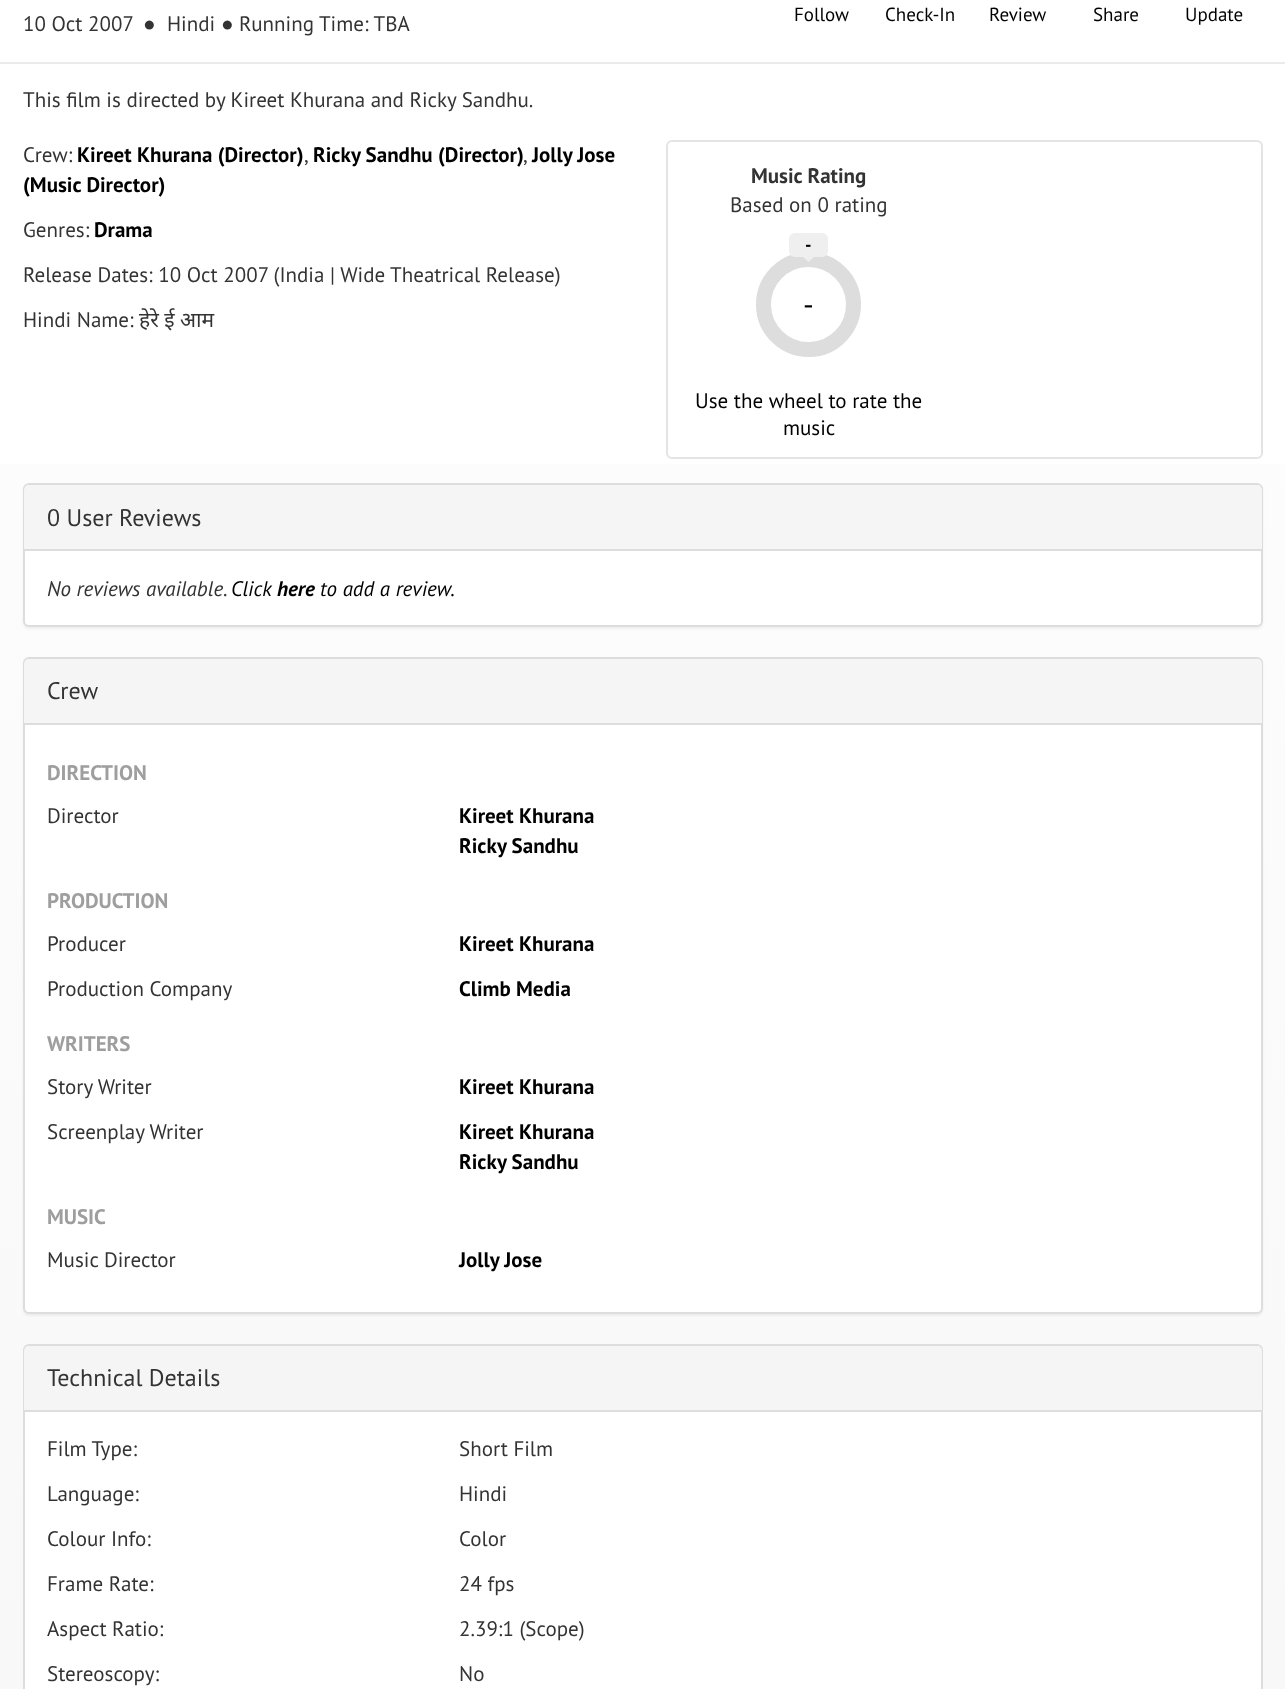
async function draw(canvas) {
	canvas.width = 1285;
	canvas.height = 1689;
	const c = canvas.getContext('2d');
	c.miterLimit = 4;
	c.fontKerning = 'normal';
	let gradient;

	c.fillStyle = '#fff';
	c.fillRect(0, 0, 1285, 1689);
	gradient = c.createLinearGradient(643, 0, 643, 1689);
	gradient.addColorStop(0, '#fff');
	gradient.addColorStop(0.33, '#fcfcfc');
	gradient.addColorStop(0.67, '#fafafa');
	gradient.addColorStop(1, '#f8f8f8');
	c.fillStyle = gradient;
	c.fillRect(0, 464, 1285, 1225);
	c.font = '21px PT Sans';
	c.fillStyle = '#333';
	c.fillText('10 Oct 2007', 23, 31);
	c.font = '21px Liberation Serif';
	c.fillText('●', 143, 31);
	c.font = '21px PT Sans';
	c.fillText('Hindi', 167, 31);
	c.font = '21px Liberation Serif';
	c.fillText('●', 221, 31);
	c.font = '21px PT Sans';
	c.fillText('Running Time: TBA', 239, 31);
	c.font = '19px PT Sans';
	c.fillStyle = '#000';
	for (const [text, x, y] of [
		['Follow', 794, 21],
		['Check-In', 885, 21],
		['Review', 989, 21],
		['Share', 1093, 21],
		['Update', 1185, 21],
	]) {
		c.fillText(text, x, y);
	}
	c.fillStyle = '#ebebeb';
	c.fillRect(0, 62, 1285, 2);
	c.font = '21px PT Sans';
	c.fillStyle = '#333';
	c.fillText('This film is directed by Kireet Khurana and Ricky Sandhu.', 23, 107);
	c.fillText('Crew:', 23, 162);
	c.font = 'bold 21px PT Sans';
	c.fillStyle = '#000';
	c.fillText('Kireet Khurana (Director)', 77, 162);
	c.font = '21px PT Sans';
	c.fillStyle = '#333';
	c.fillText(',', 304, 162);
	c.font = 'bold 21px PT Sans';
	c.fillStyle = '#000';
	c.fillText('Ricky Sandhu (Director)', 313, 162);
	c.font = '21px PT Sans';
	c.fillStyle = '#333';
	c.fillText(',', 523, 162);
	c.font = 'bold 21px PT Sans';
	c.fillStyle = '#000';
	c.fillText('Jolly Jose', 532, 162);
	c.fillText('(Music Director)', 23, 192);
	c.font = '21px PT Sans';
	c.fillStyle = '#333';
	c.fillText('Genres:', 23, 237);
	c.font = 'bold 21px PT Sans';
	c.fillStyle = '#000';
	c.fillText('Drama', 94, 237);
	c.font = '21px PT Sans';
	c.fillStyle = '#333';
	c.fillText('Release Dates: 10 Oct 2007 (India | Wide Theatrical Release)', 23, 282);
	c.fillText('Hindi Name:', 23, 327);
	c.font = '21px Noto Sans';
	c.fillText('हेरे ई आम', 139, 327);
	c.beginPath();
	c.roundRect(667, 141, 595, 317, 5);
	c.strokeStyle = '#e4e4e4';
	c.lineWidth = 2;
	c.stroke();
	c.font = 'bold 21px PT Sans';
	c.fillText('Music Rating', 751, 183);
	c.font = '21px PT Sans';
	c.fillText('Based on 0 rating', 730, 212);
	c.beginPath();
	c.moveTo(763.5, 305.5);
	c.bezierCurveTo(763, 280.5, 783, 260, 807.5, 259.5);
	c.bezierCurveTo(832.5, 259, 853, 279, 853.5, 303.5);
	c.bezierCurveTo(854, 328.5, 834, 349, 809.5, 349.5);
	c.bezierCurveTo(784.5, 350, 764, 330, 763.5, 305.5);
	c.closePath();
	c.strokeStyle = '#ddd';
	c.lineWidth = 15;
	c.stroke();
	c.fillStyle = '#efefef';
	c.beginPath();
	c.moveTo(808.5, 249.5);
	c.lineTo(815, 256);
	c.lineTo(808.5, 262);
	c.lineTo(802, 256);
	c.closePath();
	c.fill();
	c.beginPath();
	c.roundRect(789, 233, 39, 24, 6);
	c.fill();
	c.font = 'bold 18px PT Sans';
	c.fillStyle = '#000';
	c.fillText('-', 805, 251);
	c.font = '30px PT Sans';
	c.fillText('-', 803, 315);
	c.font = '21px PT Sans';
	c.fillText('Use the wheel to rate the', 695, 408);
	c.fillText('music', 783, 435);
	c.fillStyle = '#0000000d';
	c.filter = 'blur(1px)';
	c.beginPath();
	c.roundRect(23, 485, 1240, 144, 6);
	c.fill();
	c.filter = 'none';
	c.fillStyle = '#fff';
	c.beginPath();
	c.roundRect(24, 484, 1238, 142, 5);
	c.fill();
	c.lineWidth = 2;
	c.stroke();
	c.fillStyle = '#f5f5f5';
	c.beginPath();
	c.roundRect(24, 485, 1238, 66, [5, 5, 0, 0]);
	c.fill();
	c.fillStyle = '#ddd';
	c.fillRect(24, 549, 1238, 2);
	c.font = '24px PT Sans';
	c.fillStyle = '#333';
	c.fillText('0 User Reviews', 47, 526);
	c.font = 'italic 21px PT Sans';
	c.fillText('No reviews available.', 47, 596);
	c.fillStyle = '#000';
	c.fillText('Click', 231, 596);
	c.font = 'italic bold 21px PT Sans';
	c.fillText('here', 277, 596);
	c.font = 'italic 21px PT Sans';
	c.fillText('to add a review.', 320, 596);
	c.fillStyle = '#0000000d';
	c.filter = 'blur(1px)';
	c.beginPath();
	c.roundRect(23, 659, 1240, 657, 6);
	c.fill();
	c.filter = 'none';
	c.fillStyle = '#fff';
	c.beginPath();
	c.roundRect(24, 658, 1238, 655, 5);
	c.fill();
	c.stroke();
	c.fillStyle = '#f5f5f5';
	c.beginPath();
	c.roundRect(24, 659, 1238, 66, [5, 5, 0, 0]);
	c.fill();
	c.fillStyle = '#ddd';
	c.fillRect(24, 723, 1238, 2);
	c.font = '24px PT Sans';
	c.fillStyle = '#333';
	c.fillText('Crew', 47, 699);
	c.font = 'bold 21px PT Sans';
	c.fillStyle = '#9e9e9e';
	c.fillText('DIRECTION', 47, 780);
	c.font = '21px PT Sans';
	c.fillStyle = '#333';
	c.fillText('Director', 47, 823);
	c.font = 'bold 21px PT Sans';
	c.fillStyle = '#000';
	c.fillText('Kireet Khurana', 459, 823);
	c.fillText('Ricky Sandhu', 459, 853);
	c.fillStyle = '#9e9e9e';
	c.fillText('PRODUCTION', 47, 908);
	c.font = '21px PT Sans';
	c.fillStyle = '#333';
	c.fillText('Producer', 47, 951);
	c.font = 'bold 21px PT Sans';
	c.fillStyle = '#000';
	c.fillText('Kireet Khurana', 459, 951);
	c.font = '21px PT Sans';
	c.fillStyle = '#333';
	c.fillText('Production Company', 47, 996);
	c.font = 'bold 21px PT Sans';
	c.fillStyle = '#000';
	c.fillText('Climb Media', 459, 996);
	c.fillStyle = '#9e9e9e';
	c.fillText('WRITERS', 47, 1051);
	c.font = '21px PT Sans';
	c.fillStyle = '#333';
	c.fillText('Story Writer', 47, 1094);
	c.font = 'bold 21px PT Sans';
	c.fillStyle = '#000';
	c.fillText('Kireet Khurana', 459, 1094);
	c.font = '21px PT Sans';
	c.fillStyle = '#333';
	c.fillText('Screenplay Writer', 47, 1139);
	c.font = 'bold 21px PT Sans';
	c.fillStyle = '#000';
	c.fillText('Kireet Khurana', 459, 1139);
	c.fillText('Ricky Sandhu', 459, 1169);
	c.fillStyle = '#9e9e9e';
	c.fillText('MUSIC', 47, 1224);
	c.font = '21px PT Sans';
	c.fillStyle = '#333';
	c.fillText('Music Director', 47, 1267);
	c.font = 'bold 21px PT Sans';
	c.fillStyle = '#000';
	c.fillText('Jolly Jose', 459, 1267);
	c.fillStyle = '#fff';
	c.beginPath();
	c.roundRect(24, 1345, 1238, 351, 5);
	c.fill();
	c.stroke();
	c.fillStyle = '#f5f5f5';
	c.beginPath();
	c.roundRect(24, 1346, 1238, 66, [5, 5, 0, 0]);
	c.fill();
	c.fillStyle = '#ddd';
	c.fillRect(24, 1410, 1238, 2);
	c.font = '24px PT Sans';
	c.fillStyle = '#333';
	c.fillText('Technical Details', 47, 1386);
	c.font = '21px PT Sans';
	for (const [text, x, y] of [
		['Film Type:', 47, 1456],
		['Short Film', 459, 1456],
		['Language:', 47, 1501],
		['Hindi', 459, 1501],
		['Colour Info:', 47, 1546],
		['Color', 459, 1546],
		['Frame Rate:', 47, 1591],
		['24 fps', 459, 1591],
		['Aspect Ratio:', 47, 1636],
		['2.39:1 (Scope)', 459, 1636],
		['Stereoscopy:', 47, 1681],
		['No', 459, 1681],
	]) {
		c.fillText(text, x, y);
	}
}

draw(document.querySelector('canvas'));
